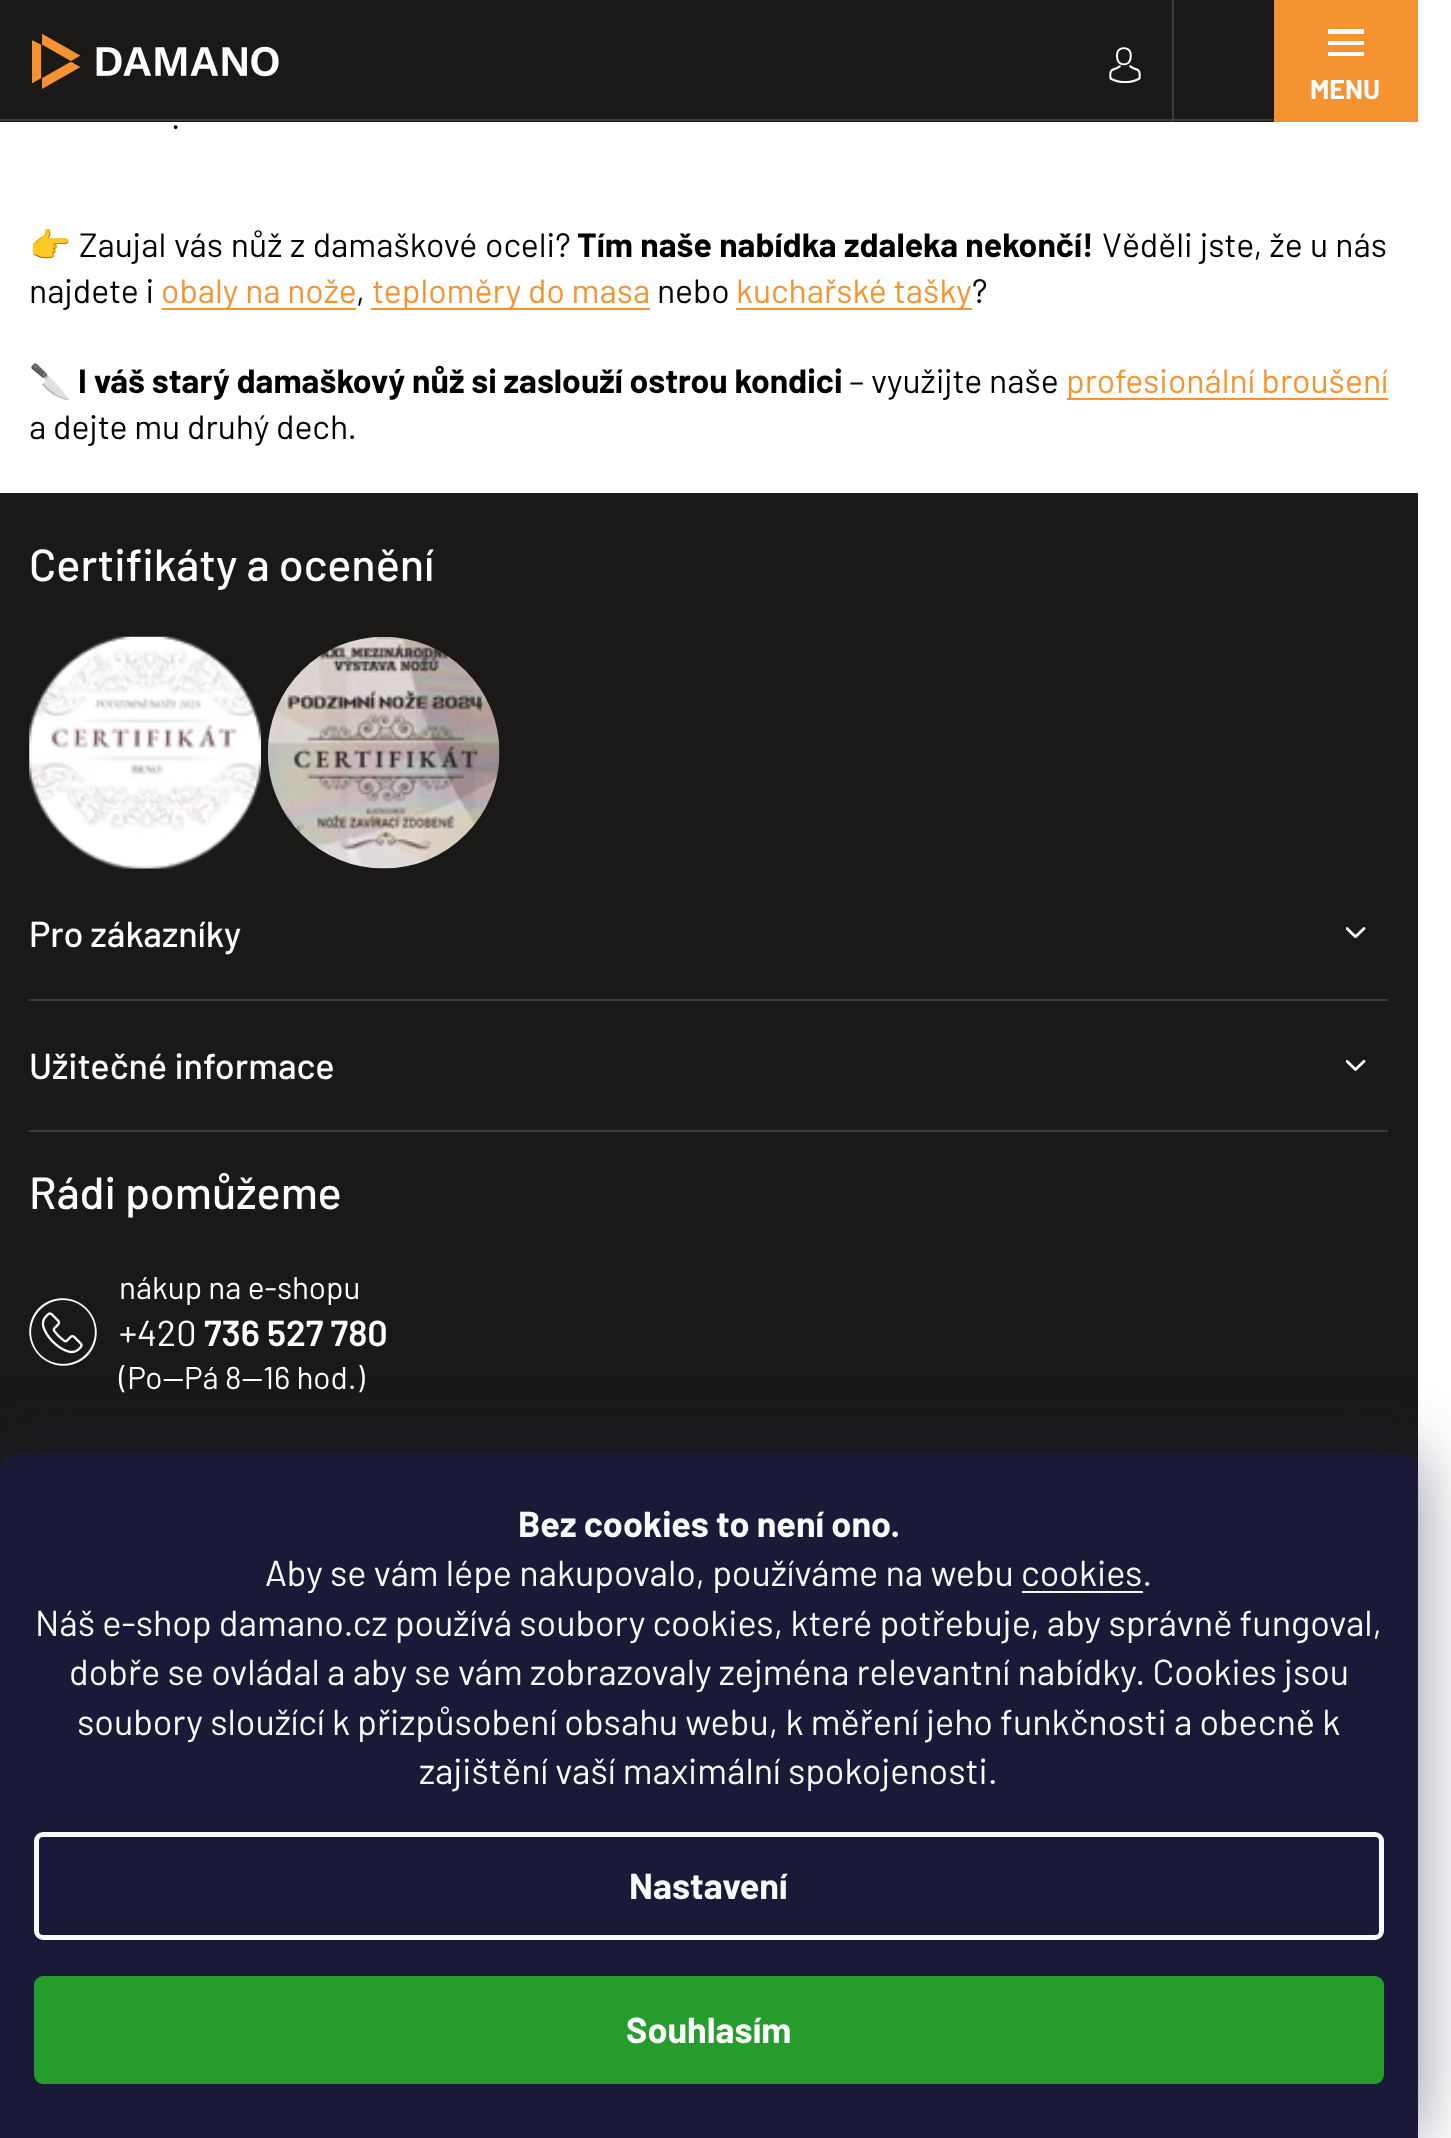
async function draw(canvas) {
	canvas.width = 1451;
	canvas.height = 2138;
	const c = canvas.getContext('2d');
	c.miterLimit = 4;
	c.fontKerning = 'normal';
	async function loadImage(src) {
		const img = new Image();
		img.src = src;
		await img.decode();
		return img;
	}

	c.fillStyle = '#fff';
	c.fillRect(0, 0, 1451, 2138);
	c.fillStyle = '#1a1918';
	c.fillRect(0, 0, 1274, 122);
	c.drawImage(await loadImage('img1.png'), 32, 34, 247, 55);
	c.fillStyle = '#3a3a3a';
	c.fillRect(0, 119, 1274, 2);
	c.fillRect(1172, 0, 2, 122);
	c.drawImage(await loadImage('img2.png'), 1109, 47, 32, 36);
	for (const [x, y, w, h, color] of [
		[1274, 0, 144, 122, '#f59331'],
		[1328, 29, 36, 5, '#fff'],
		[1328, 41, 36, 4, '#fff'],
		[1328, 52, 36, 4, '#fff'],
	]) {
		c.fillStyle = color;
		c.fillRect(x, y, w, h);
	}
	c.font = 'bold 27px Barlow';
	c.fillText('MENU', 1310, 99);
	c.font = '33.75px Barlow';
	c.fillStyle = '#000';
	c.fillText('.', 171, 129);
	c.font = '33.75px Noto Color Emoji';
	c.fillText('👉', 29, 257);
	c.wordSpacing = '1px';
	c.font = '33.75px Barlow';
	c.fillText('Zaujal vás nůž z damaškové oceli?', 79, 257);
	c.wordSpacing = '0.5px';
	c.font = 'bold 33.75px Barlow';
	c.fillText('Tím naše nabídka zdaleka nekončí!', 577, 257);
	c.font = '33.75px Barlow';
	c.fillText('Věděli jste, že u nás', 1102, 257);
	c.wordSpacing = '0px';
	c.fillText('najdete i', 29, 303);
	c.fillStyle = '#f59331';
	c.fillRect(162, 308, 194, 2);
	c.fillText('obaly na nože', 161, 303);
	c.fillStyle = '#000';
	c.fillText(',', 356, 303);
	c.fillStyle = '#f59331';
	c.fillRect(371, 308, 279, 2);
	c.fillText('teploměry do masa', 372, 303);
	c.fillStyle = '#000';
	c.fillText('nebo', 657, 303);
	c.fillStyle = '#f59331';
	c.fillRect(736, 308, 236, 2);
	c.fillText('kuchařské tašky', 736, 303);
	c.fillStyle = '#000';
	c.fillText('?', 972, 303);
	c.font = 'bold 33.75px Noto Color Emoji';
	c.fillText('🔪', 29, 393);
	c.font = 'bold 33.75px Barlow';
	c.fillText('I váš starý damaškový nůž si zaslouží ostrou kondici', 78, 393);
	c.font = '33.75px Barlow';
	c.fillText('– využijte naše', 849, 393);
	c.fillStyle = '#f59331';
	c.fillRect(1067, 398, 321, 2);
	c.fillText('profesionální broušení', 1066, 393);
	c.fillStyle = '#000';
	c.fillText('a dejte mu druhý dech.', 29, 439);
	c.fillStyle = '#1a1918';
	c.fillRect(0, 493, 1418, 979);
	c.font = '500 45px Barlow';
	c.fillStyle = '#fff';
	c.fillText('Certifikáty a ocenění', 29, 581);
	c.drawImage(await loadImage('img3.png'), 29, 636, 232, 233);
	c.drawImage(await loadImage('img4.png'), 267, 636, 233, 233);
	c.fillStyle = '#3a3a3a';
	c.fillRect(29, 999, 1359, 2);
	c.font = '500 36px Barlow';
	c.fillStyle = '#fff';
	c.fillText('Pro zákazníky', 29, 947);
	c.drawImage(await loadImage('img5.png'), 1346, 927, 20, 11);
	c.fillStyle = '#3a3a3a';
	c.fillRect(29, 1130, 1359, 2);
	c.fillStyle = '#fff';
	c.fillText('Užitečné informace', 29, 1079);
	c.drawImage(await loadImage('img6.png'), 1346, 1060, 20, 11);
	c.font = '500 45px Barlow';
	c.fillText('Rádi pomůžeme', 29, 1209);
	c.font = '31.5px Barlow';
	c.fillText('nákup na e-shopu', 119, 1299);
	c.drawImage(await loadImage('img7.png'), 29, 1298, 68, 68);
	c.font = '36px Barlow';
	c.fillText('+420', 119, 1346);
	c.font = '600 36px Barlow';
	c.fillText('736 527 780', 204, 1346);
	c.font = '31.5px Barlow';
	c.fillText('(Po—Pá 8—16 hod.)', 119, 1389);
	c.fillStyle = '#1b193980';
	c.filter = 'blur(34px)';
	c.beginPath();
	c.roundRect(0, 1454, 1418, 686, 18);
	c.fill();
	c.filter = 'none';
	c.fillStyle = '#1a1937';
	c.beginPath();
	c.moveTo(18, 1454);
	c.lineTo(1400, 1454);
	c.bezierCurveTo(1410, 1454, 1418, 1462, 1418, 1472);
	c.lineTo(1418, 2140);
	c.lineTo(0, 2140);
	c.lineTo(0, 1472);
	c.bezierCurveTo(0, 1462, 8, 1454, 18, 1454);
	c.closePath();
	c.fill();
	c.font = 'bold 36px Barlow';
	c.fillStyle = '#f8fafb';
	c.fillText('Bez cookies to není ono.', 518, 1537);
	c.font = '36px Barlow';
	c.fillText('Aby se vám lépe nakupovalo, používáme na webu cookies.', 265, 1586);
	c.fillRect(1022, 1591, 121, 2);
	for (const [text, x, y] of [
		['Náš e-shop damano.cz používá soubory cookies, které potřebuje, aby správně fungoval,', 35, 1636],
		['dobře se ovládal a aby se vám zobrazovaly zejména relevantní nabídky. Cookies jsou', 69, 1685],
		['soubory sloužící k přizpůsobení obsahu webu, k měření jeho funkčnosti a obecně k', 77, 1735],
		['zajištění vaší maximální spokojenosti.', 419, 1784],
	]) {
		c.fillText(text, x, y);
	}
	c.beginPath();
	c.roundRect(36.5, 1834.5, 1345, 103, 6.5);
	c.strokeStyle = '#f8fafb';
	c.lineWidth = 5;
	c.stroke();
	c.font = 'bold 36px Barlow';
	c.fillText('Nastavení', 629, 1899);
	c.fillStyle = '#269c2c';
	c.beginPath();
	c.roundRect(34, 1976, 1350, 108, 9);
	c.fill();
	c.fillStyle = '#fff';
	c.fillText('Souhlasím', 626, 2043);
}

draw(document.querySelector('canvas'));
